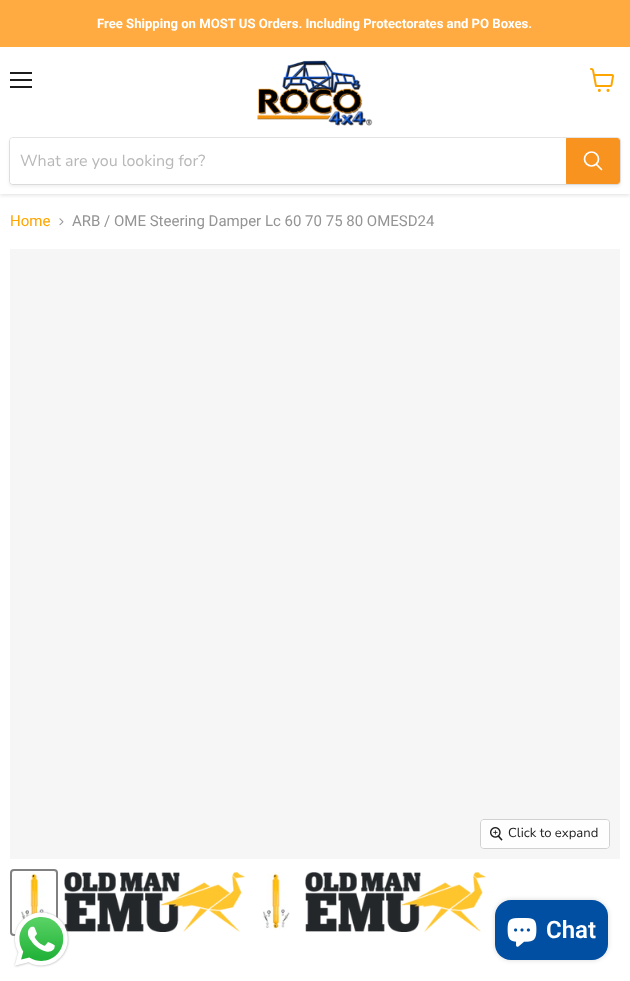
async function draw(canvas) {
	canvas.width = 630;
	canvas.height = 981;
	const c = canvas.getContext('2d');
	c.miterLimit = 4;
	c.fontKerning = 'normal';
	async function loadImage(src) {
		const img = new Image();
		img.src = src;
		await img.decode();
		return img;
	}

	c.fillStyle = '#fff';
	c.fillRect(0, 0, 630, 981);
	c.save();
	c.beginPath();
	c.rect(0, 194, 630, 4);
	c.clip();
	c.fillStyle = '#80808040';
	c.filter = 'blur(2px)';
	c.beginPath();
	c.rect(0, 48, 630, 147);
	c.fill();
	c.filter = 'none';
	c.restore();
	c.fillStyle = '#ffab41';
	c.fillRect(0, 0, 630, 47);
	c.font = 'bold 13.1px Roboto';
	c.fillStyle = '#fff';
	c.fillText('Free Shipping on MOST US Orders. Including Protectorates and PO Boxes.', 97, 28);
	for (const [x, y, w, h, color] of [
		[10, 72, 22, 2, '#1d1d1d'],
		[10, 79, 22, 2, '#1d1d1d'],
		[10, 86, 22, 2, '#1d1d1d'],
	]) {
		c.fillStyle = color;
		c.fillRect(x, y, w, h);
	}
	c.drawImage(await loadImage('img1.png'), 590, 68, 24, 24);
	c.drawImage(await loadImage('img2.png'), 257, 60, 116, 66);
	c.fillStyle = '#8080801c';
	c.filter = 'blur(1.5px)';
	c.beginPath();
	c.roundRect(9, 139, 612, 48, 4);
	c.fill();
	c.filter = 'none';
	c.beginPath();
	c.roundRect(9.5, 137.5, 611, 47, 3.5);
	c.strokeStyle = '#80808033';
	c.stroke();
	c.fillStyle = '#fff';
	c.beginPath();
	c.roundRect(10, 138, 556, 46, [3, 0, 0, 3]);
	c.fill();
	c.font = '16px Nunito Sans';
	c.fillStyle = '#b8b8b8';
	c.fillText('What are you looking for?', 20, 166);
	c.fillStyle = '#f7931e';
	c.beginPath();
	c.roundRect(566.5, 138.5, 53, 45, [0, 2.5, 2.5, 0]);
	c.fill();
	c.strokeStyle = '#f7931e';
	c.stroke();
	c.beginPath();
	c.moveTo(601.5, 169.5);
	c.lineTo(596.5, 164.5);
	c.strokeStyle = '#fff';
	c.lineWidth = 1.7;
	c.lineCap = 'round';
	c.stroke();
	c.beginPath();
	c.arc(591.5, 159, 7, 0, 2 * Math.PI);
	c.stroke();
	c.font = '15px Roboto';
	c.fillStyle = '#ffa500';
	c.fillText('Home', 10, 226);
	c.drawImage(await loadImage('img3.png'), 59, 218, 5, 8);
	c.fillStyle = '#949494';
	c.fillText('ARB / OME Steering Damper Lc 60 70 75 80 OMESD24', 72, 226);
	c.fillStyle = '#f6f6f6';
	c.fillRect(10, 249, 610, 610);
	c.beginPath();
	c.roundRect(480.5, 819.5, 129, 29, 3.5);
	c.strokeStyle = '#d1d1d1';
	c.lineWidth = 1;
	c.stroke();
	c.fillStyle = '#ffffffe6';
	c.beginPath();
	c.roundRect(481, 820, 128, 28, 3);
	c.fill();
	c.drawImage(await loadImage('img4.png'), 490, 827, 13, 14);
	c.font = '13.1px Nunito Sans';
	c.fillStyle = '#1d1d1d';
	c.fillText('Click to expand', 508, 837);
	c.beginPath();
	c.roundRect(11, 870, 46, 65, 3);
	c.strokeStyle = '#818181';
	c.lineWidth = 2;
	c.stroke();
	c.drawImage(await loadImage('img5.png'), 21, 872, 28, 50);
	c.drawImage(await loadImage('img6.png'), 64, 872, 181, 60);
	c.drawImage(await loadImage('img7.png'), 262, 872, 28, 58);
	c.drawImage(await loadImage('img6.png'), 305, 872, 181, 60);
	c.drawImage(await loadImage('img8.png'), 13, 911, 57, 57);
	c.fillStyle = '#00000026';
	c.filter = 'blur(2.5px)';
	c.beginPath();
	c.roundRect(495, 900, 113, 60, 16);
	c.fill();
	c.filter = 'none';
	c.fillStyle = '#004fa3';
	c.beginPath();
	c.roundRect(495, 900, 113, 60, 16);
	c.fill();
	c.drawImage(await loadImage('img9.png'), 507, 918, 30, 29);
	c.font = '600 24px Roboto';
	c.fillStyle = '#fff';
	c.fillText('Chat', 546, 938);
}

draw(document.querySelector('canvas'));
